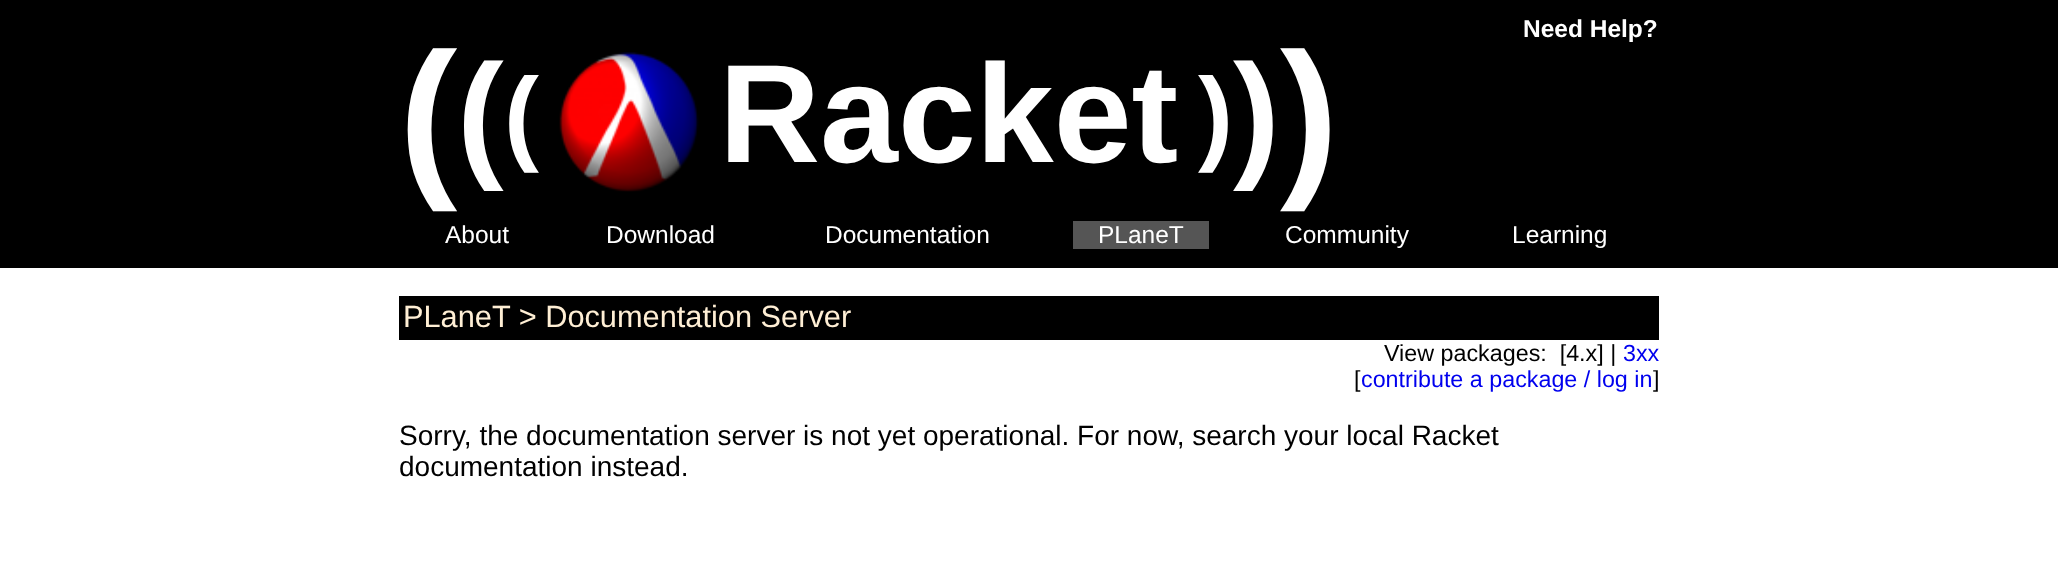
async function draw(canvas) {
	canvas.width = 2058;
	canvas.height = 586;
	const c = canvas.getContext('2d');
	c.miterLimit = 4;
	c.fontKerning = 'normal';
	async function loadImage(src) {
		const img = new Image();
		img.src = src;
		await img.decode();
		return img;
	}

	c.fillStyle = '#fff';
	c.fillRect(0, 0, 2058, 586);
	c.fillStyle = '#000';
	c.fillRect(0, 0, 2058, 268);
	c.font = 'bold 24.5px Liberation Sans';
	c.fillStyle = '#fff';
	c.fillText('Need Help?', 1523, 37);
	c.font = 'bold 175px Liberation Sans';
	c.fillText('(', 399, 175);
	c.font = 'bold 140px Liberation Sans';
	c.fillText('(', 457, 162);
	c.font = 'bold 105px Liberation Sans';
	c.fillText('(', 504, 151);
	c.drawImage(await loadImage('img1.png'), 559, 52, 140, 140);
	c.font = 'bold 140px Liberation Sans';
	c.fillText('Racket', 719, 162);
	c.font = 'bold 105px Liberation Sans';
	c.fillText(')', 1198, 151);
	c.font = 'bold 140px Liberation Sans';
	c.fillText(')', 1233, 162);
	c.font = 'bold 175px Liberation Sans';
	c.fillText(')', 1280, 175);
	c.font = '24.5px Liberation Sans';
	for (const [text, x, y] of [
		['About', 445, 243],
		['Download', 606, 243],
		['Documentation', 825, 243],
	]) {
		c.fillText(text, x, y);
	}
	c.fillStyle = '#555';
	c.fillRect(1073, 221, 136, 28);
	c.fillStyle = '#fff';
	for (const [text, x, y] of [
		['PLaneT', 1098, 243],
		['Community', 1285, 243],
		['Learning', 1512, 243],
	]) {
		c.fillText(text, x, y);
	}
	c.fillStyle = '#000';
	c.fillRect(399, 296, 1260, 44);
	c.font = '30.75px Liberation Sans';
	c.fillStyle = '#ffefd5';
	c.fillText('PLaneT > Documentation Server', 403, 327);
	c.font = '23.3px Liberation Sans';
	c.fillStyle = '#000';
	c.fillText('View packages:  [4.x] |', 1384, 361);
	c.fillStyle = '#00e';
	c.fillText('3xx', 1623, 361);
	c.fillStyle = '#000';
	c.fillText('[', 1354, 387);
	c.fillStyle = '#00e';
	c.fillText('contribute a package / log in', 1361, 387);
	c.fillStyle = '#000';
	c.fillText(']', 1653, 387);
	c.font = '28px Liberation Sans';
	c.fillText('Sorry, the documentation server is not yet operational. For now, search your local Racket', 399, 445);
	c.fillText('documentation instead.', 399, 476);
}

draw(document.querySelector('canvas'));
